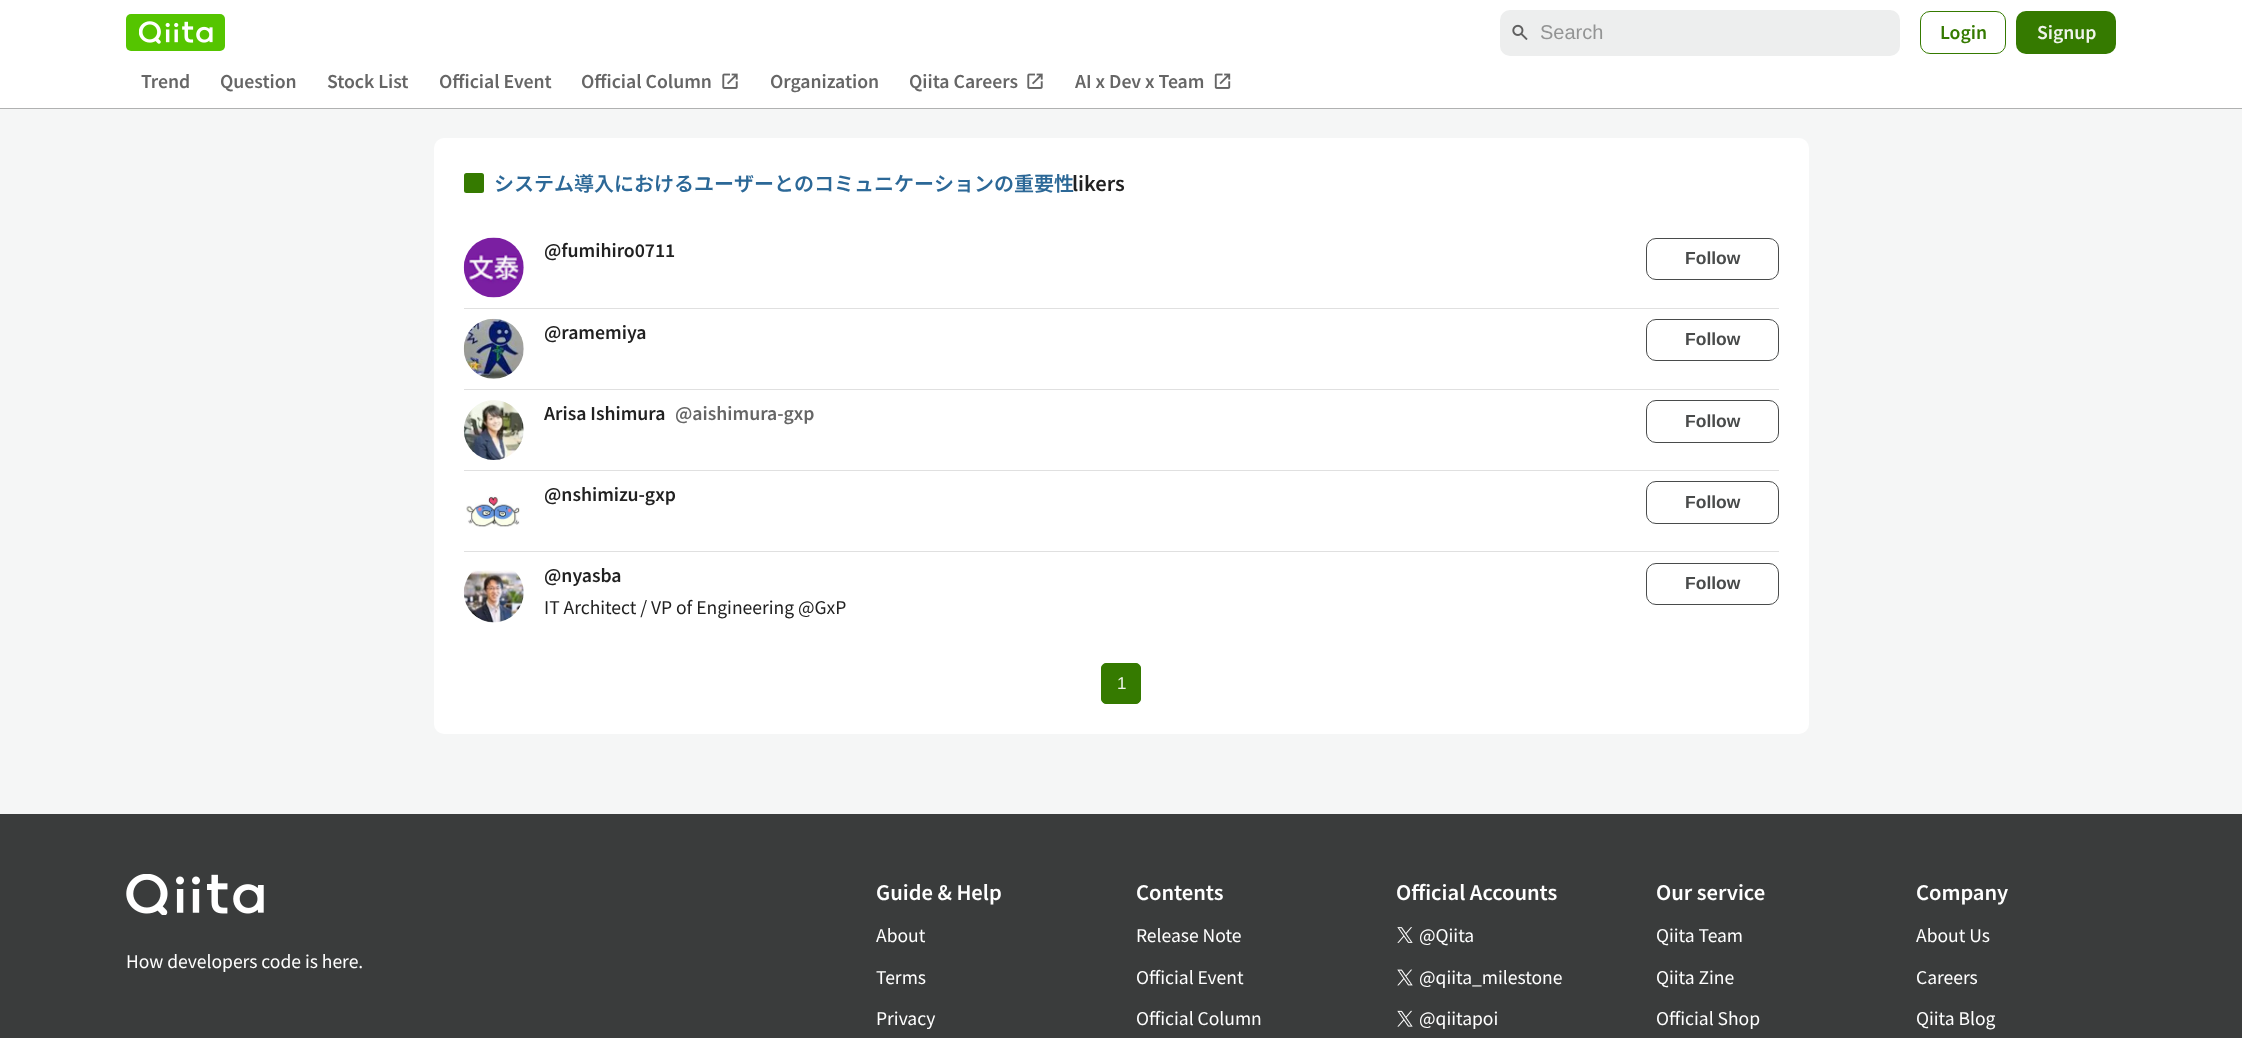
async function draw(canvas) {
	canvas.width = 2242;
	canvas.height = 1038;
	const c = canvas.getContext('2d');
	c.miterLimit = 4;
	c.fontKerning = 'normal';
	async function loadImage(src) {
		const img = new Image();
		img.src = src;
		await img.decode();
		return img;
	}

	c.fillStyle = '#f5f6f6';
	c.fillRect(0, 0, 2242, 1038);
	c.strokeStyle = '#e1e2e2';
	c.strokeRect(-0.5, -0.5, 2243, 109);
	c.fillStyle = '#1e212140';
	c.filter = 'blur(0.5px)';
	c.beginPath();
	c.rect(0, 1, 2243, 108);
	c.fill();
	c.filter = 'none';
	c.fillStyle = '#fff';
	c.fillRect(0, 0, 2242, 108);
	c.fillStyle = '#55c500';
	c.beginPath();
	c.roundRect(126, 14, 99, 37, 5);
	c.fill();
	c.drawImage(await loadImage('img1.png'), 139, 21, 74, 23);
	c.fillStyle = '#edeeee';
	c.beginPath();
	c.roundRect(1500, 10, 400, 46, 10);
	c.fill();
	c.drawImage(await loadImage('img2.png'), 1512, 24, 16, 16);
	c.font = '20px Liberation Sans';
	c.fillStyle = '#939494';
	c.fillText('Search', 1540, 39);
	c.beginPath();
	c.roundRect(1920.5, 11.5, 85, 42, 9.5);
	c.strokeStyle = '#357a00';
	c.stroke();
	c.font = '600 17.5px Noto Sans JP';
	c.fillStyle = '#357a00';
	c.fillText('Login', 1940, 39);
	c.beginPath();
	c.roundRect(2016, 11, 100, 43, 10);
	c.fill();
	c.fillStyle = '#eff4eb';
	c.fillText('Signup', 2037, 39);
	c.fillStyle = '#666';
	for (const [text, x, y] of [
		['Trend', 141, 88],
		['Question', 220, 88],
		['Stock List', 327, 88],
		['Official Event', 439, 88],
		['Official Column', 581, 88],
	]) {
		c.fillText(text, x, y);
	}
	c.drawImage(await loadImage('img3.png'), 722, 73, 16, 16);
	c.fillText('Organization', 770, 88);
	c.fillText('Qiita Careers', 909, 88);
	c.drawImage(await loadImage('img3.png'), 1027, 73, 16, 16);
	c.fillText('AI x Dev x Team', 1075, 88);
	c.drawImage(await loadImage('img4.png'), 1214, 73, 17, 16);
	c.fillStyle = '#fff';
	c.beginPath();
	c.roundRect(434, 138, 1375, 596, 10);
	c.fill();
	c.fillStyle = '#357a00';
	c.beginPath();
	c.roundRect(464, 173, 20, 20, 2.5);
	c.fill();
	c.font = '600 20px Noto Sans JP';
	c.fillStyle = '#2c6897';
	c.fillText('システム導入におけるユーザーとのコミュニケーションの重要性', 494, 191);
	c.fillStyle = '#212121';
	c.fillText('likers', 1072, 191);
	c.drawImage(await loadImage('img5.png'), 463, 237, 61, 61);
	c.font = '600 17.5px Noto Sans JP';
	c.fillText('@fumihiro0711', 544, 257);
	c.beginPath();
	c.roundRect(1646.5, 238.5, 132, 41, 9.5);
	c.strokeStyle = '#494b4b';
	c.stroke();
	c.font = 'bold 17.5px Liberation Sans';
	c.fillStyle = '#494b4b';
	c.fillText('Follow', 1685, 264);
	c.fillStyle = '#e0e0e0';
	c.fillRect(464, 308, 1315, 1);
	c.drawImage(await loadImage('img6.png'), 463, 318, 61, 61);
	c.font = '600 17.5px Noto Sans JP';
	c.fillStyle = '#212121';
	c.fillText('@ramemiya', 544, 339);
	c.beginPath();
	c.roundRect(1646.5, 319.5, 132, 41, 9.5);
	c.stroke();
	c.font = 'bold 17.5px Liberation Sans';
	c.fillStyle = '#494b4b';
	c.fillText('Follow', 1685, 345);
	c.fillStyle = '#e0e0e0';
	c.fillRect(464, 389, 1315, 1);
	c.drawImage(await loadImage('img7.png'), 463, 400, 61, 60);
	c.font = '600 17.5px Noto Sans JP';
	c.fillStyle = '#212121';
	c.fillText('Arisa Ishimura', 544, 420);
	c.fillStyle = '#666';
	c.fillText('@aishimura-gxp', 675, 420);
	c.beginPath();
	c.roundRect(1646.5, 400.5, 132, 42, 9.5);
	c.stroke();
	c.font = 'bold 17.5px Liberation Sans';
	c.fillStyle = '#494b4b';
	c.fillText('Follow', 1685, 427);
	c.fillStyle = '#e0e0e0';
	c.fillRect(464, 470, 1315, 1);
	c.drawImage(await loadImage('img8.png'), 466, 496, 54, 31);
	c.font = '600 17.5px Noto Sans JP';
	c.fillStyle = '#212121';
	c.fillText('@nshimizu-gxp', 544, 501);
	c.beginPath();
	c.roundRect(1646.5, 481.5, 132, 42, 9.5);
	c.stroke();
	c.font = 'bold 17.5px Liberation Sans';
	c.fillStyle = '#494b4b';
	c.fillText('Follow', 1685, 508);
	c.fillStyle = '#e0e0e0';
	c.fillRect(464, 551, 1315, 1);
	c.drawImage(await loadImage('img9.png'), 463, 570, 61, 53);
	c.font = '600 17.5px Noto Sans JP';
	c.fillStyle = '#212121';
	c.fillText('@nyasba', 544, 582);
	c.font = '17.5px Noto Sans JP';
	c.fillText('IT Architect / VP of Engineering @GxP', 544, 614);
	c.beginPath();
	c.roundRect(1646.5, 563.5, 132, 41, 9.5);
	c.stroke();
	c.font = 'bold 17.5px Liberation Sans';
	c.fillStyle = '#494b4b';
	c.fillText('Follow', 1685, 589);
	c.fillStyle = '#357a00';
	c.beginPath();
	c.roundRect(1101.5, 663.5, 39, 40, 4.5);
	c.fill();
	c.strokeStyle = '#357a00';
	c.stroke();
	c.font = '17px Liberation Sans';
	c.fillStyle = '#eff4eb';
	c.fillText('1', 1117, 689);
	c.fillStyle = '#3a3c3c';
	c.fillRect(0, 814, 2242, 224);
	c.drawImage(await loadImage('img10.png'), 126, 874, 138, 41);
	c.font = '17.5px Noto Sans JP';
	c.fillStyle = '#fff';
	c.fillText('How developers code is here.', 126, 968);
	c.font = '600 20px Noto Sans JP';
	c.fillText('Guide & Help', 876, 900);
	c.font = '17.5px Noto Sans JP';
	for (const [text, x, y] of [
		['About', 876, 942],
		['Terms', 876, 984],
		['Privacy', 876, 1025],
	]) {
		c.fillText(text, x, y);
	}
	c.font = '600 20px Noto Sans JP';
	c.fillText('Contents', 1136, 900);
	c.font = '17.5px Noto Sans JP';
	for (const [text, x, y] of [
		['Release Note', 1136, 942],
		['Official Event', 1136, 984],
		['Official Column', 1136, 1025],
	]) {
		c.fillText(text, x, y);
	}
	c.font = '600 20px Noto Sans JP';
	c.fillText('Official Accounts', 1396, 900);
	c.drawImage(await loadImage('img11.png'), 1397, 927, 16, 16);
	c.font = '17.5px Noto Sans JP';
	c.fillText('@Qiita', 1419, 942);
	c.drawImage(await loadImage('img12.png'), 1397, 969, 16, 17);
	c.fillText('@qiita_milestone', 1419, 984);
	c.drawImage(await loadImage('img13.png'), 1397, 1010, 16, 17);
	c.fillText('@qiitapoi', 1419, 1025);
	c.font = '600 20px Noto Sans JP';
	c.fillText('Our service', 1656, 900);
	c.font = '17.5px Noto Sans JP';
	for (const [text, x, y] of [
		['Qiita Team', 1656, 942],
		['Qiita Zine', 1656, 984],
		['Official Shop', 1656, 1025],
	]) {
		c.fillText(text, x, y);
	}
	c.font = '600 20px Noto Sans JP';
	c.fillText('Company', 1916, 900);
	c.font = '17.5px Noto Sans JP';
	for (const [text, x, y] of [
		['About Us', 1916, 942],
		['Careers', 1916, 984],
		['Qiita Blog', 1916, 1025],
	]) {
		c.fillText(text, x, y);
	}
}

draw(document.querySelector('canvas'));
